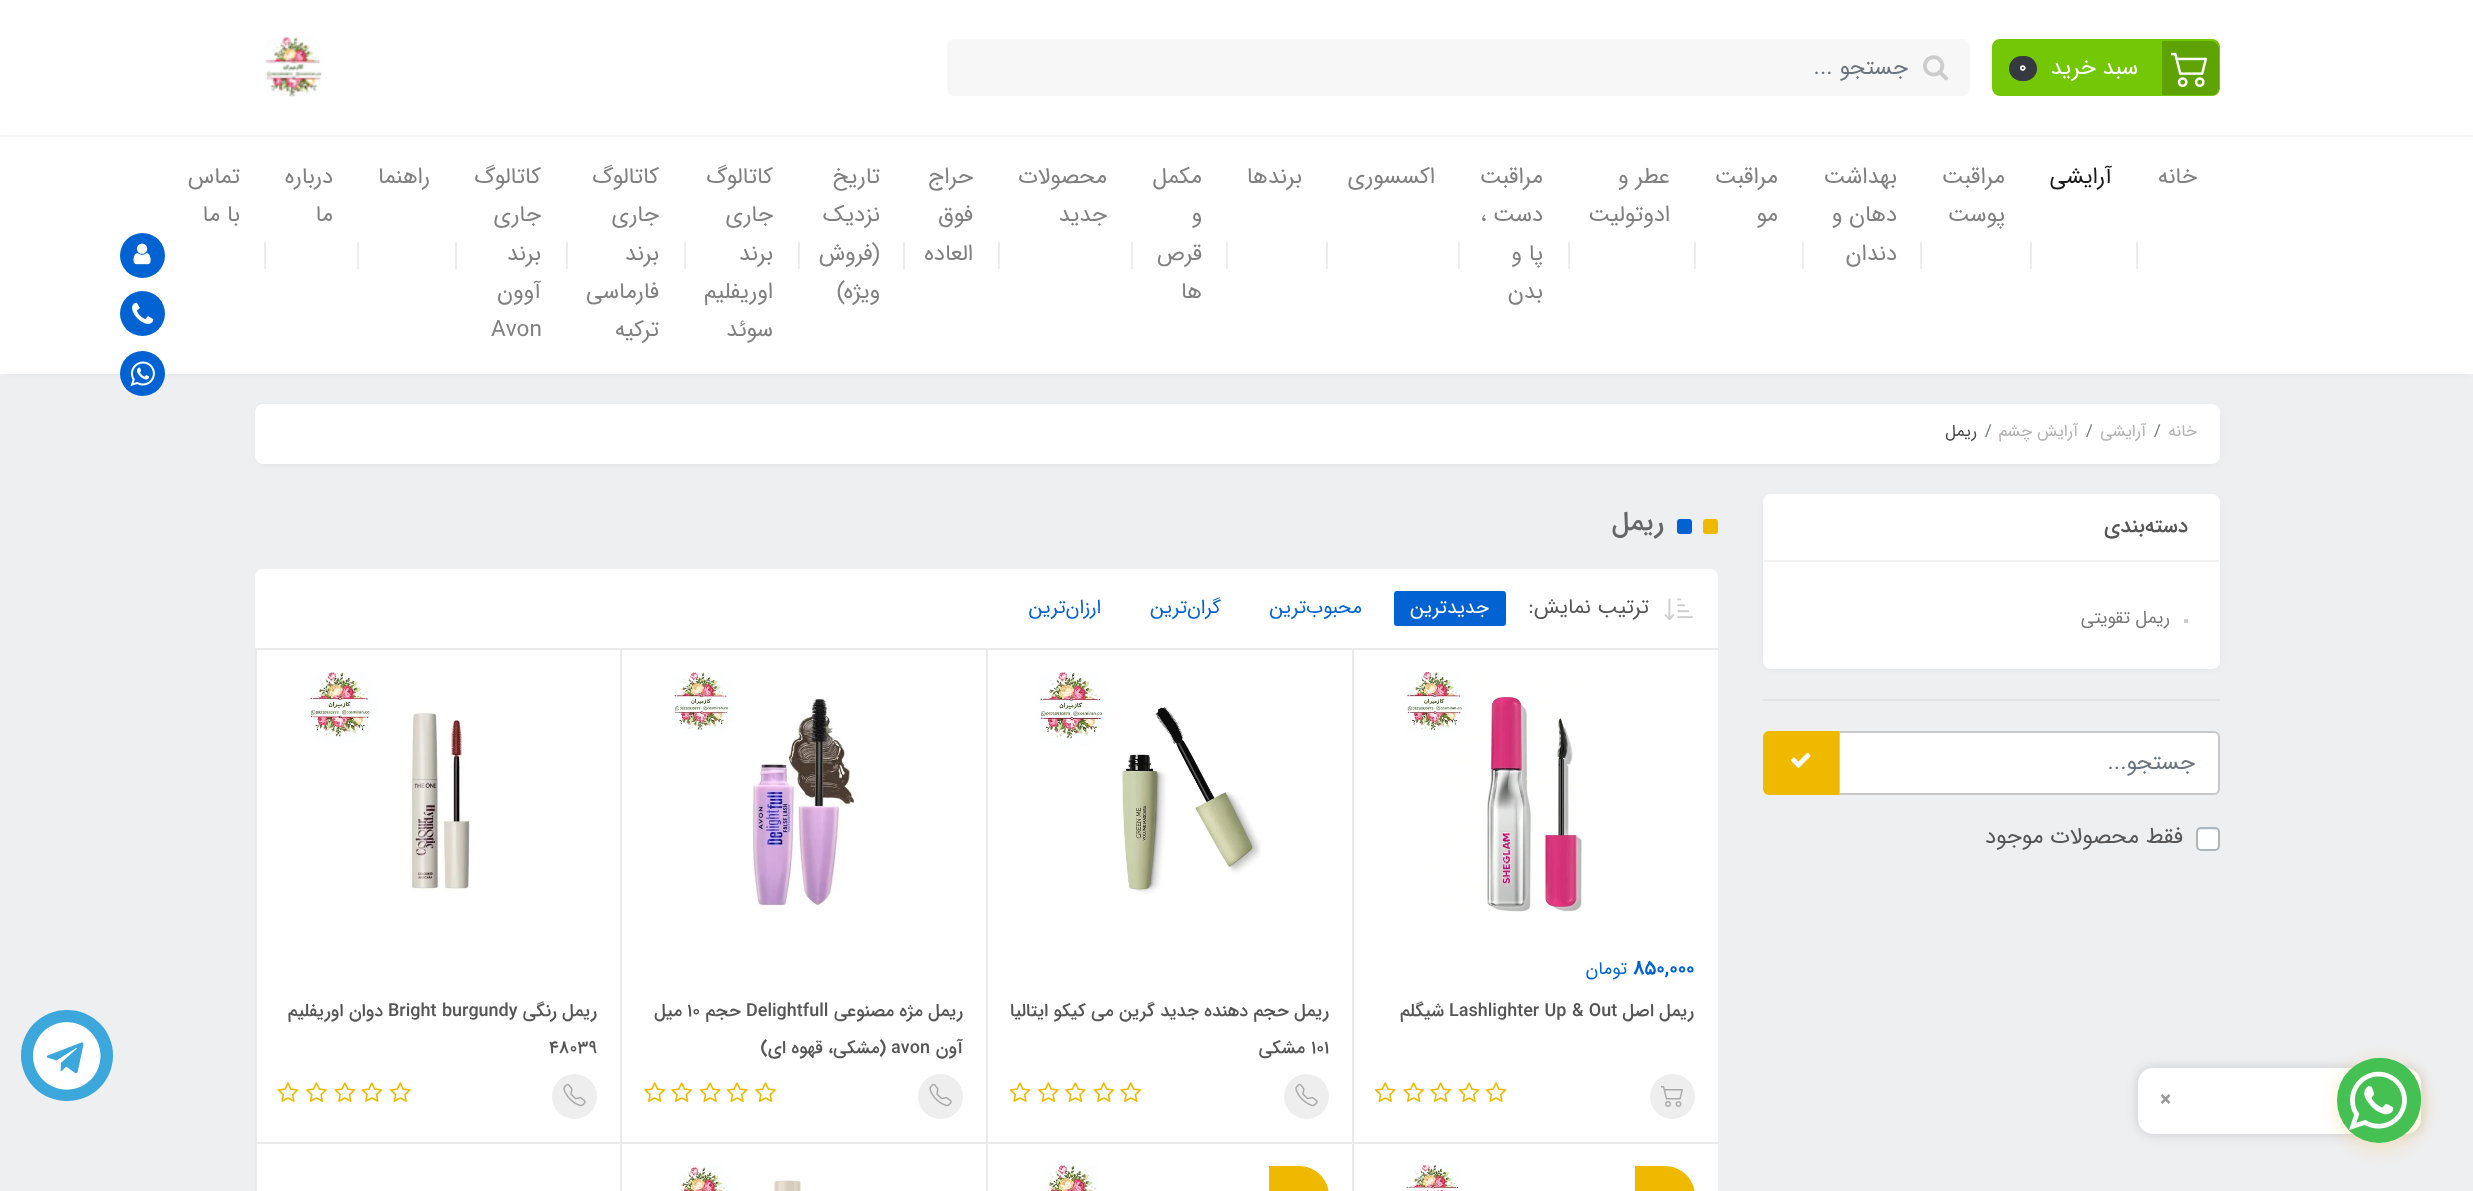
async function draw(canvas) {
	canvas.width = 2473;
	canvas.height = 1191;
	const c = canvas.getContext('2d');
	c.miterLimit = 4;
	c.fontKerning = 'normal';
	async function loadImage(src) {
		const img = new Image();
		img.src = src;
		await img.decode();
		return img;
	}

	c.fillStyle = '#eeeff1';
	c.fillRect(0, 0, 2473, 1191);
	c.fillStyle = '#fff';
	c.fillRect(0, 0, 2473, 135);
	c.fillStyle = '#74c704';
	c.beginPath();
	c.roundRect(1993, 40, 226, 55, 7);
	c.fill();
	c.strokeStyle = '#74c704';
	c.lineWidth = 2;
	c.stroke();
	c.save();
	c.beginPath();
	c.roundRect(1994, 41, 225, 54, 6);
	c.clip();
	c.fillStyle = '#5ea203';
	c.beginPath();
	c.roundRect(2162, 41, 57, 55, [0, 8, 8, 0]);
	c.fill();
	c.restore();
	c.drawImage(await loadImage('img1.png'), 2171, 52, 36, 35);
	c.direction = 'rtl';
	c.font = '22.5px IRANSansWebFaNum';
	c.fillStyle = '#fff';
	c.fillText('سبد خرید', 2138, 74);
	c.fillStyle = '#343a40';
	c.beginPath();
	c.roundRect(2009, 56, 28, 25, 12.5);
	c.fill();
	c.direction = 'ltr';
	c.font = 'bold 17px IRANSansWebFaNum';
	c.fillStyle = '#fff';
	c.fillText('0', 2019, 72);
	c.fillStyle = '#f7f7f7';
	c.beginPath();
	c.roundRect(947, 39, 1023, 57, 8);
	c.fill();
	c.drawImage(await loadImage('img2.png'), 1923, 55, 25, 26);
	c.direction = 'rtl';
	c.font = '22.5px IRANSansWebFaNum';
	c.fillStyle = '#6c757d';
	c.fillText('جستجو ...', 1908, 74);
	c.drawImage(await loadImage('img3.png'), 265, 37, 57, 60);
	c.fillStyle = '#0000001a';
	c.filter = 'blur(5px)';
	c.beginPath();
	c.rect(5, 141, 2464, 230);
	c.fill();
	c.filter = 'none';
	c.fillStyle = '#fff';
	c.fillRect(0, 137, 2473, 237);
	c.fillStyle = '#f5f5f5';
	c.fillRect(0, 135, 2473, 2);
	c.fillStyle = '#808080';
	c.fillText('خانه', 2197, 183);
	c.fillStyle = '#1a1a1a';
	c.fillText('آرایشی', 2112, 183);
	c.fillStyle = '#ededed';
	c.fillRect(2136, 242, 2, 27);
	c.fillStyle = '#808080';
	c.fillText('مراقبت', 2005, 183);
	c.fillText('پوست', 2005, 221);
	c.fillStyle = '#ededed';
	c.fillRect(2030, 242, 2, 27);
	c.fillRect(1920, 242, 2, 27);
	c.fillStyle = '#808080';
	for (const [text, x, y] of [
		['بهداشت', 1897, 183],
		['دهان و', 1897, 221],
		['دندان', 1897, 260],
		['مراقبت', 1778, 183],
		['مو', 1778, 221],
	]) {
		c.fillText(text, x, y);
	}
	c.fillStyle = '#ededed';
	c.fillRect(1802, 242, 2, 27);
	c.fillStyle = '#808080';
	c.fillText('عطر و', 1670, 183);
	c.fillText('ادوتولیت', 1670, 221);
	c.fillStyle = '#ededed';
	c.fillRect(1694, 242, 2, 27);
	c.fillRect(1568, 242, 2, 27);
	c.fillStyle = '#808080';
	for (const [text, x, y] of [
		['مراقبت', 1543, 183],
		['دست ،', 1543, 221],
		['پا و', 1543, 260],
		['بدن', 1543, 298],
		['اکسسوری', 1435, 183],
	]) {
		c.fillText(text, x, y);
	}
	c.fillStyle = '#ededed';
	c.fillRect(1458, 242, 2, 27);
	c.fillStyle = '#808080';
	c.fillText('برندها', 1302, 183);
	c.fillStyle = '#ededed';
	c.fillRect(1326, 242, 2, 27);
	c.fillRect(1226, 242, 2, 27);
	c.fillStyle = '#808080';
	for (const [text, x, y] of [
		['مکمل', 1202, 183],
		['و', 1202, 221],
		['قرص', 1202, 260],
		['ها', 1202, 298],
		['محصولات', 1107, 183],
		['جدید', 1107, 221],
	]) {
		c.fillText(text, x, y);
	}
	c.fillStyle = '#ededed';
	c.fillRect(1131, 242, 2, 27);
	c.fillRect(998, 242, 2, 27);
	c.fillStyle = '#808080';
	for (const [text, x, y] of [
		['حراج', 973, 183],
		['فوق', 973, 221],
		['العاده', 973, 260],
	]) {
		c.fillText(text, x, y);
	}
	c.fillStyle = '#ededed';
	c.fillRect(903, 242, 2, 27);
	c.fillStyle = '#808080';
	for (const [text, x, y] of [
		['تاریخ', 880, 183],
		['نزدیک', 880, 221],
		['(فروش', 880, 260],
		['ویژه)', 880, 298],
	]) {
		c.fillText(text, x, y);
	}
	c.fillStyle = '#ededed';
	c.fillRect(798, 242, 2, 27);
	c.fillStyle = '#808080';
	for (const [text, x, y] of [
		['کاتالوگ', 773, 183],
		['جاری', 773, 221],
		['برند', 773, 260],
		['اوریفلیم', 773, 298],
		['سوئد', 773, 336],
	]) {
		c.fillText(text, x, y);
	}
	c.fillStyle = '#ededed';
	c.fillRect(684, 242, 2, 27);
	c.fillStyle = '#808080';
	for (const [text, x, y] of [
		['کاتالوگ', 659, 183],
		['جاری', 659, 221],
		['برند', 659, 260],
		['فارماسی', 659, 298],
		['ترکیه', 659, 336],
	]) {
		c.fillText(text, x, y);
	}
	c.fillStyle = '#ededed';
	c.fillRect(566, 242, 2, 27);
	c.fillStyle = '#808080';
	for (const [text, x, y] of [
		['کاتالوگ', 541, 183],
		['جاری', 541, 221],
		['برند', 541, 260],
		['آوون', 541, 298],
	]) {
		c.fillText(text, x, y);
	}
	c.direction = 'ltr';
	c.fillText('Avon', 491, 336);
	c.direction = 'rtl';
	c.fillText('راهنما', 430, 183);
	c.fillStyle = '#ededed';
	c.fillRect(455, 242, 2, 27);
	c.fillStyle = '#808080';
	c.fillText('درباره', 333, 183);
	c.fillText('ما', 333, 221);
	c.fillStyle = '#ededed';
	c.fillRect(357, 242, 2, 27);
	c.fillStyle = '#808080';
	c.fillText('تماس', 240, 183);
	c.fillText('با ما', 240, 221);
	c.fillStyle = '#ededed';
	c.fillRect(264, 242, 2, 27);
	c.fillStyle = '#0063d1';
	c.beginPath();
	c.arc(142.5, 255.5, 22.5, 0, 2 * Math.PI);
	c.fill();
	c.drawImage(await loadImage('img4.png'), 133, 243, 18, 22);
	c.beginPath();
	c.arc(142.5, 313.5, 22.5, 0, 2 * Math.PI);
	c.fill();
	c.drawImage(await loadImage('img5.png'), 132, 302, 22, 22);
	c.beginPath();
	c.arc(142.5, 373.5, 22.5, 0, 2 * Math.PI);
	c.fill();
	c.drawImage(await loadImage('img6.png'), 130, 361, 25, 26);
	c.fillStyle = '#0000001a';
	c.filter = 'blur(5px)';
	c.beginPath();
	c.roundRect(260, 410, 1956, 51, 3);
	c.fill();
	c.filter = 'none';
	c.fillStyle = '#fff';
	c.beginPath();
	c.roundRect(255, 404, 1965, 60, 8);
	c.fill();
	c.font = '16.5px IRANSansWebFaNum';
	c.fillStyle = '#b1b1b1';
	c.fillText('خانه', 2197, 436);
	c.direction = 'ltr';
	c.fillStyle = '#6c757d';
	c.fillText('/', 2154, 436);
	c.direction = 'rtl';
	c.fillStyle = '#b1b1b1';
	c.fillText('آرایشی', 2146, 436);
	c.direction = 'ltr';
	c.fillStyle = '#6c757d';
	c.fillText('/', 2086, 436);
	c.direction = 'rtl';
	c.fillStyle = '#b1b1b1';
	c.fillText('آرایش چشم', 2078, 436);
	c.direction = 'ltr';
	c.fillStyle = '#6c757d';
	c.fillText('/', 1985, 436);
	c.direction = 'rtl';
	c.fillStyle = '#444';
	c.fillText('ریمل', 1977, 436);
	c.fillStyle = '#0000001a';
	c.filter = 'blur(5px)';
	c.beginPath();
	c.roundRect(1767, 500, 449, 166, 3);
	c.fill();
	c.filter = 'none';
	c.fillStyle = '#fff';
	c.beginPath();
	c.roundRect(1764, 495, 455, 173, 7);
	c.fill();
	c.strokeStyle = '#fff';
	c.stroke();
	c.font = '500 21px IRANSansWebFaNum';
	c.fillStyle = '#555';
	c.fillText('دسته‌بندی', 2188, 532);
	c.fillStyle = '#f2f2f2';
	c.fillRect(1764, 560, 455, 2);
	c.fillStyle = '#ccc';
	c.fillRect(2184, 619, 4, 4);
	c.font = '18px IRANSansWebFaNum';
	c.fillStyle = '#777';
	c.fillText('ریمل تقویتی', 2170, 623);
	c.fillStyle = '#e4e4e4';
	c.fillRect(1763, 699, 457, 2);
	c.fillStyle = '#fff';
	c.beginPath();
	c.roundRect(1839, 732, 380, 62, [0, 5, 5, 0]);
	c.fill();
	c.strokeStyle = '#c8c8c8';
	c.stroke();
	c.font = '22.5px IRANSansWebFaNum';
	c.fillStyle = '#6c757d';
	c.fillText('جستجو...', 2195, 769);
	c.fillStyle = '#efb900';
	c.beginPath();
	c.roundRect(1764, 732, 74, 62, [5, 0, 0, 5]);
	c.fill();
	c.strokeStyle = '#efb900';
	c.stroke();
	c.drawImage(await loadImage('img7.png'), 1791, 752, 20, 16);
	c.fillStyle = '#fff';
	c.beginPath();
	c.roundRect(2196, 827, 24, 24, 5);
	c.fill();
	c.fillStyle = '#ececec';
	c.beginPath();
	c.moveTo(2200, 830);
	c.lineTo(2211, 830);
	c.lineTo(2216.5, 830.5);
	c.bezierCurveTo(2217.5, 830.5, 2218, 831, 2218.5, 832);
	c.lineTo(2218, 839.5);
	c.lineTo(2218.5, 847.5);
	c.bezierCurveTo(2219.5, 846, 2219, 840.5, 2219, 838.5);
	c.bezierCurveTo(2219, 827, 2220, 828, 2208.5, 828);
	c.lineTo(2203.5, 828);
	c.bezierCurveTo(2201, 828, 2198, 828, 2198, 831);
	c.bezierCurveTo(2198.5, 830.5, 2199, 830, 2200, 830);
	c.closePath();
	c.fill();
	c.beginPath();
	c.roundRect(2197, 828, 22, 22, 4);
	c.strokeStyle = '#adb5bd';
	c.stroke();
	c.fillStyle = '#555';
	c.fillText('فقط محصولات موجود', 2183, 843);
	c.fillStyle = '#efb900';
	c.beginPath();
	c.roundRect(1703, 519, 15, 15, 3);
	c.fill();
	c.fillStyle = '#0063d1';
	c.beginPath();
	c.roundRect(1677, 519, 15, 15, 3);
	c.fill();
	c.font = '500 27px IRANSansWebFaNum';
	c.fillStyle = '#666';
	c.fillText('ریمل', 1664, 530);
	c.fillStyle = '#fff';
	c.beginPath();
	c.roundRect(255, 569, 1463, 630, 8);
	c.fill();
	c.drawImage(await loadImage('img8.png'), 1664, 598, 29, 22);
	c.font = '21px IRANSansWebFaNum';
	c.fillStyle = '#555';
	c.fillText('ترتیب نمایش:', 1649, 613);
	c.fillStyle = '#0063d1';
	c.beginPath();
	c.roundRect(1395, 592, 110, 33, 2);
	c.fill();
	c.strokeStyle = '#0063d1';
	c.stroke();
	c.font = '19.5px IRANSansWebFaNum';
	c.fillStyle = '#fff';
	c.fillText('جدیدترین', 1489, 613);
	c.fillStyle = '#0063d1';
	for (const [text, x, y] of [
		['محبوب‌ترین', 1362, 613],
		['گران‌ترین', 1221, 613],
		['ارزان‌ترین', 1101, 613],
	]) {
		c.fillText(text, x, y);
	}
	c.fillStyle = '#ebebeb';
	c.fillRect(255, 648, 1463, 2);
	c.fillRect(1352, 648, 2, 494);
	c.drawImage(await loadImage('img9.png'), 1405, 672, 177, 240);
	c.direction = 'ltr';
	c.font = 'bold 19.5px IRANSansWebFaNum';
	c.fillStyle = '#0063d1';
	c.fillText('850,000', 1633, 974);
	c.direction = 'rtl';
	c.font = '18px IRANSansWebFaNum';
	c.fillText('تومان', 1627, 974);
	c.font = '500 18px IRANSansWebFaNum';
	c.fillStyle = '#555';
	c.fillText('ریمل اصل', 1694, 1016);
	c.direction = 'ltr';
	c.fillText('Lashlighter Up & Out', 1449, 1016);
	c.direction = 'rtl';
	c.fillText('شیگلم', 1444, 1016);
	c.fillStyle = '#eee';
	c.beginPath();
	c.arc(1672.5, 1096.5, 22.5, 0, 2 * Math.PI);
	c.fill();
	c.drawImage(await loadImage('img10.png'), 1661, 1086, 22, 21);
	c.drawImage(await loadImage('img11.png'), 1485, 1082, 22, 20);
	c.drawImage(await loadImage('img12.png'), 1458, 1082, 22, 20);
	c.drawImage(await loadImage('img13.png'), 1430, 1082, 21, 20);
	c.drawImage(await loadImage('img14.png'), 1403, 1082, 22, 20);
	c.drawImage(await loadImage('img15.png'), 1374, 1082, 22, 20);
	c.fillStyle = '#ebebeb';
	c.fillRect(986, 648, 2, 494);
	c.drawImage(await loadImage('img16.png'), 1039, 672, 222, 222);
	c.fillStyle = '#555';
	c.fillText('ریمل حجم دهنده جدید گرین می کیکو ایتالیا', 1329, 1016);
	c.direction = 'ltr';
	c.fillText('101', 1311, 1053);
	c.direction = 'rtl';
	c.fillText('مشکی', 1305, 1053);
	c.fillStyle = '#eee';
	c.beginPath();
	c.arc(1306.5, 1096.5, 22.5, 0, 2 * Math.PI);
	c.fill();
	c.drawImage(await loadImage('img17.png'), 1295, 1083, 23, 24);
	c.drawImage(await loadImage('img18.png'), 1120, 1082, 22, 20);
	c.drawImage(await loadImage('img19.png'), 1093, 1082, 22, 20);
	c.drawImage(await loadImage('img20.png'), 1065, 1082, 21, 20);
	c.drawImage(await loadImage('img21.png'), 1038, 1082, 21, 20);
	c.drawImage(await loadImage('img22.png'), 1009, 1082, 22, 20);
	c.fillStyle = '#ebebeb';
	c.fillRect(620, 648, 2, 494);
	c.drawImage(await loadImage('img23.png'), 673, 672, 181, 234);
	c.fillStyle = '#555';
	c.fillText('ریمل مژه مصنوعی', 963, 1016);
	c.direction = 'ltr';
	c.fillText('Delightfull', 746, 1016);
	c.direction = 'rtl';
	c.fillText('حجم', 741, 1016);
	c.direction = 'ltr';
	c.fillText('10', 687, 1016);
	c.direction = 'rtl';
	c.fillText('میل', 682, 1016);
	c.fillText('آون', 963, 1053);
	c.direction = 'ltr';
	c.fillText('avon', 891, 1053);
	c.direction = 'rtl';
	c.fillText('(مشکی، قهوه ای)', 886, 1053);
	c.fillStyle = '#eee';
	c.beginPath();
	c.arc(940.5, 1096.5, 22.5, 0, 2 * Math.PI);
	c.fill();
	c.drawImage(await loadImage('img17.png'), 929, 1083, 23, 24);
	c.drawImage(await loadImage('img24.png'), 755, 1082, 21, 20);
	c.drawImage(await loadImage('img12.png'), 726, 1082, 22, 20);
	c.drawImage(await loadImage('img25.png'), 699, 1082, 22, 20);
	c.drawImage(await loadImage('img14.png'), 671, 1082, 22, 20);
	c.drawImage(await loadImage('img26.png'), 644, 1082, 22, 20);
	c.fillStyle = '#ebebeb';
	c.fillRect(255, 648, 2, 494);
	c.drawImage(await loadImage('img27.png'), 309, 672, 161, 219);
	c.fillStyle = '#555';
	c.fillText('ریمل رنگی', 597, 1016);
	c.direction = 'ltr';
	c.fillText('Bright burgundy', 388, 1016);
	c.direction = 'rtl';
	c.fillText('دوان اوریفلیم', 383, 1016);
	c.direction = 'ltr';
	c.fillText('48039', 549, 1053);
	c.fillStyle = '#eee';
	c.beginPath();
	c.arc(574.5, 1096.5, 22.5, 0, 2 * Math.PI);
	c.fill();
	c.drawImage(await loadImage('img17.png'), 563, 1083, 23, 24);
	c.drawImage(await loadImage('img28.png'), 389, 1082, 22, 20);
	c.drawImage(await loadImage('img19.png'), 361, 1082, 22, 20);
	c.drawImage(await loadImage('img29.png'), 334, 1082, 22, 20);
	c.drawImage(await loadImage('img21.png'), 306, 1082, 21, 20);
	c.drawImage(await loadImage('img22.png'), 277, 1082, 22, 20);
	c.fillStyle = '#ebebeb';
	c.fillRect(255, 1142, 1463, 2);
	c.fillRect(1352, 1142, 2, 49);
	c.fillStyle = '#efb900';
	c.beginPath();
	c.moveTo(1635, 1166);
	c.lineTo(1665, 1166);
	c.bezierCurveTo(1681.5, 1166, 1695, 1179.5, 1695, 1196);
	c.lineTo(1695, 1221);
	c.lineTo(1665, 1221);
	c.bezierCurveTo(1648.5, 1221, 1635, 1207.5, 1635, 1191);
	c.closePath();
	c.fill();
	c.drawImage(await loadImage('img30.png'), 1406, 1165, 54, 26);
	c.fillStyle = '#ebebeb';
	c.fillRect(986, 1142, 2, 49);
	c.fillStyle = '#efb900';
	c.beginPath();
	c.moveTo(1269, 1166);
	c.lineTo(1299, 1166);
	c.bezierCurveTo(1315.5, 1166, 1329, 1179.5, 1329, 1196);
	c.lineTo(1329, 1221);
	c.lineTo(1299, 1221);
	c.bezierCurveTo(1282.5, 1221, 1269, 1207.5, 1269, 1191);
	c.closePath();
	c.fill();
	c.drawImage(await loadImage('img31.png'), 1043, 1165, 56, 26);
	c.fillStyle = '#ebebeb';
	c.fillRect(620, 1142, 2, 49);
	c.drawImage(await loadImage('img32.png'), 678, 1165, 123, 26);
	c.fillRect(255, 1142, 2, 49);
	c.fillStyle = '#00000026';
	c.filter = 'blur(6px)';
	c.beginPath();
	c.roundRect(2138, 1068, 283, 66, 15);
	c.fill();
	c.filter = 'none';
	c.fillStyle = '#fff';
	c.beginPath();
	c.roundRect(2138, 1068, 283, 66, 15);
	c.fill();
	c.fillStyle = '#ffb93159';
	c.filter = 'blur(11px)';
	c.beginPath();
	c.roundRect(2340, 1065, 81, 81, 40.5);
	c.fill();
	c.filter = 'none';
	c.fillStyle = '#ffffff40';
	c.filter = 'blur(4px)';
	c.beginPath();
	c.roundRect(2340, 1061, 81, 81, 40.5);
	c.fill();
	c.filter = 'none';
	c.fillStyle = '#39b766';
	c.beginPath();
	c.arc(2380.5, 1098.5, 40.5, 0, 2 * Math.PI);
	c.fill();
	c.fillStyle = '#45c153';
	c.beginPath();
	c.roundRect(2337, 1058, 84, 85, 42);
	c.fill();
	c.drawImage(await loadImage('img33.png'), 2349, 1071, 58, 59);
	c.font = 'bold 21px IRANSansWebFaNum';
	c.fillStyle = '#999';
	c.fillText('×', 2160, 1106);
	c.fillStyle = '#3ca7db';
	c.beginPath();
	c.roundRect(21, 1010, 92, 91, 45.5);
	c.fill();
	c.drawImage(await loadImage('img34.png'), 33, 1022, 68, 68);
}

draw(document.querySelector('canvas'));
